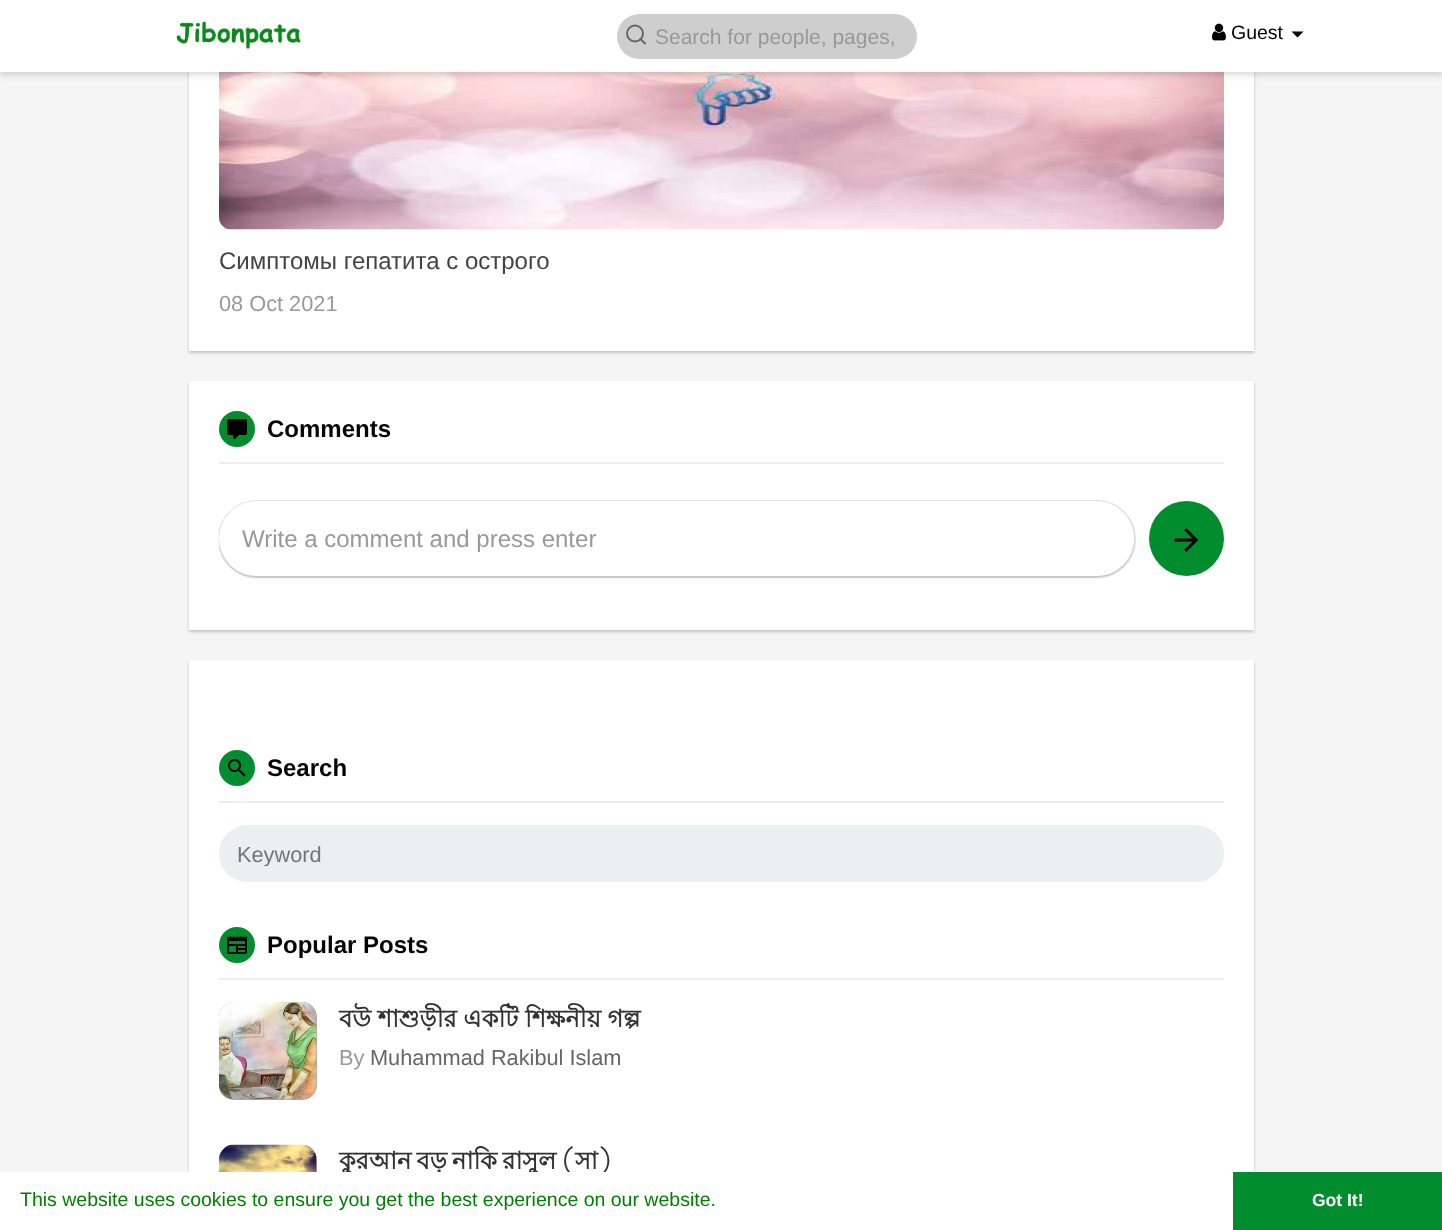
async function draw(canvas) {
	canvas.width = 1442;
	canvas.height = 1230;
	const c = canvas.getContext('2d');
	c.miterLimit = 4;
	c.fontKerning = 'normal';
	async function loadImage(src) {
		const img = new Image();
		img.src = src;
		await img.decode();
		return img;
	}

	c.fillStyle = '#f5f5f5';
	c.fillRect(0, 0, 1442, 1230);
	c.fillStyle = '#00000033';
	c.filter = 'blur(1.5px)';
	c.beginPath();
	c.rect(189, -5, 1065, 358);
	c.fill();
	c.filter = 'none';
	c.fillStyle = '#fff';
	c.fillRect(189, 72, 1065, 279);
	c.drawImage(await loadImage('img3.png'), 219, 72, 1005, 158);
	c.fillStyle = '#00000026';
	c.filter = 'blur(3px)';
	c.beginPath();
	c.rect(0, 3, 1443, 72);
	c.fill();
	c.filter = 'none';
	c.fillStyle = '#fff';
	c.fillRect(0, 0, 1442, 72);
	c.drawImage(await loadImage('img1.png'), 176, 21, 125, 28);
	c.fillStyle = '#cecece';
	c.beginPath();
	c.roundRect(617, 14, 300, 45, 22.5);
	c.fill();
	c.beginPath();
	c.arc(635, 33.5, 8, 0, 2 * Math.PI);
	c.strokeStyle = '#666';
	c.lineWidth = 2;
	c.stroke();
	c.beginPath();
	c.moveTo(645, 43.5);
	c.lineTo(640.5, 39);
	c.lineCap = 'round';
	c.lineJoin = 'round';
	c.stroke();
	c.save();
	c.beginPath();
	c.rect(656, 24, 241, 24);
	c.clip();
	c.font = '21px Liberation Sans';
	c.fillStyle = '#999';
	c.fillText('Search for people, pages,', 655, 44);
	c.restore();
	c.drawImage(await loadImage('img2.png'), 1212, 23, 14, 18);
	c.font = '19.5px Liberation Sans';
	c.fillStyle = '#050505';
	c.fillText('Guest', 1231, 39);
	c.fillStyle = '#000';
	c.beginPath();
	c.moveTo(1291.5, 31.5);
	c.lineTo(1303.5, 31.5);
	c.lineTo(1297.5, 37.5);
	c.closePath();
	c.fill();
	c.font = '24px Liberation Sans';
	c.fillStyle = '#444';
	c.fillText('Симптомы гепатита с острого', 219, 269);
	c.font = '21.75px Liberation Sans';
	c.fillStyle = '#999';
	c.fillText('08 Oct 2021', 219, 311);
	c.fillStyle = '#00000033';
	c.filter = 'blur(1.5px)';
	c.beginPath();
	c.rect(189, 383, 1065, 249);
	c.fill();
	c.filter = 'none';
	c.fillStyle = '#fff';
	c.fillRect(189, 381, 1065, 249);
	c.fillStyle = '#eee';
	c.fillRect(219, 462, 1005, 2);
	c.fillStyle = '#018c2d';
	c.beginPath();
	c.arc(237, 429, 18, 0, 2 * Math.PI);
	c.fill();
	c.drawImage(await loadImage('img4.png'), 227, 419, 20, 20);
	c.font = 'bold 24px Liberation Sans';
	c.fillStyle = '#050505';
	c.fillText('Comments', 267, 437);
	c.fillStyle = '#0000001f';
	c.filter = 'blur(1px)';
	c.beginPath();
	c.roundRect(219, 503, 915, 75, 37.5);
	c.fill();
	c.filter = 'none';
	c.save();
	c.beginPath();
	c.rect(219, 494, 1005, 90);
	c.clip();
	c.beginPath();
	c.roundRect(219, 501, 916, 76, 38);
	c.strokeStyle = '#3c425729';
	c.lineJoin = 'miter';
	c.stroke();
	c.restore();
	c.fillStyle = '#fff';
	c.beginPath();
	c.roundRect(219, 501, 915, 75, 37.5);
	c.fill();
	c.font = '24px Liberation Sans';
	c.fillStyle = '#999';
	c.fillText('Write a comment and press enter', 242, 547);
	c.fillStyle = '#018c2d';
	c.beginPath();
	c.arc(1186.5, 538.5, 37.5, 0, 2 * Math.PI);
	c.fill();
	c.drawImage(await loadImage('img5.png'), 1174, 528, 25, 24);
	c.fillStyle = '#00000033';
	c.filter = 'blur(1.5px)';
	c.beginPath();
	c.rect(189, 662, 1065, 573);
	c.fill();
	c.filter = 'none';
	c.fillStyle = '#fff';
	c.fillRect(189, 660, 1065, 512);
	c.fillStyle = '#eee';
	c.fillRect(219, 801, 1005, 2);
	c.fillStyle = '#018c2d';
	c.beginPath();
	c.arc(237, 768, 18, 0, 2 * Math.PI);
	c.fill();
	c.drawImage(await loadImage('img6.png'), 228, 759, 18, 18);
	c.font = 'bold 24px Liberation Sans';
	c.fillStyle = '#050505';
	c.fillText('Search', 267, 776);
	c.fillStyle = '#eaeff2';
	c.beginPath();
	c.roundRect(219, 825, 1005, 57, 28.5);
	c.fill();
	c.save();
	c.beginPath();
	c.rect(237, 842, 969, 24);
	c.clip();
	c.font = '21.75px Liberation Sans';
	c.fillStyle = '#757575';
	c.fillText('Keyword', 237, 862);
	c.restore();
	c.fillStyle = '#eee';
	c.fillRect(219, 978, 1005, 2);
	c.fillStyle = '#018c2d';
	c.beginPath();
	c.arc(237, 945, 18, 0, 2 * Math.PI);
	c.fill();
	c.drawImage(await loadImage('img7.png'), 227, 936, 20, 18);
	c.fillStyle = '#050505';
	c.fillText('Popular Posts', 267, 953);
	c.fillStyle = '#aaa';
	c.beginPath();
	c.roundRect(219, 1002, 98, 98, 15);
	c.fill();
	c.drawImage(await loadImage('img8.png'), 219, 1002, 98, 98);
	c.font = 'bold 24px Lohit Bengali';
	c.fillStyle = '#333';
	c.fillText('বউ শাশুড়ীর একটি শিক্ষনীয় গল্প', 339, 1027);
	c.font = '21.75px Liberation Sans';
	c.fillStyle = '#999';
	c.fillText('By', 339, 1065);
	c.fillStyle = '#666';
	c.fillText('Muhammad Rakibul Islam', 370, 1065);
	c.fillStyle = '#aaa';
	c.beginPath();
	c.roundRect(219, 1145, 98, 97, 15);
	c.fill();
	c.drawImage(await loadImage('img9.png'), 219, 1144, 98, 28);
	c.wordSpacing = '-1.5px';
	c.font = 'bold 24px Lohit Bengali';
	c.fillStyle = '#333';
	c.fillText('কুরআন বড় নাকি রাসুল (সা)', 339, 1169);
	c.fillStyle = '#fff';
	c.fillRect(0, 1172, 1233, 58);
	c.wordSpacing = '0px';
	c.font = '19.5px Liberation Sans';
	c.fillStyle = '#008000';
	c.fillText('This website uses cookies to ensure you get the best experience on our website.', 20, 1206);
	c.fillStyle = '#018c2d';
	c.fillRect(1233, 1172, 209, 58);
	c.font = 'bold 17.5px Liberation Sans';
	c.fillStyle = '#fff';
	c.fillText('Got It!', 1312, 1206);
}

draw(document.querySelector('canvas'));
